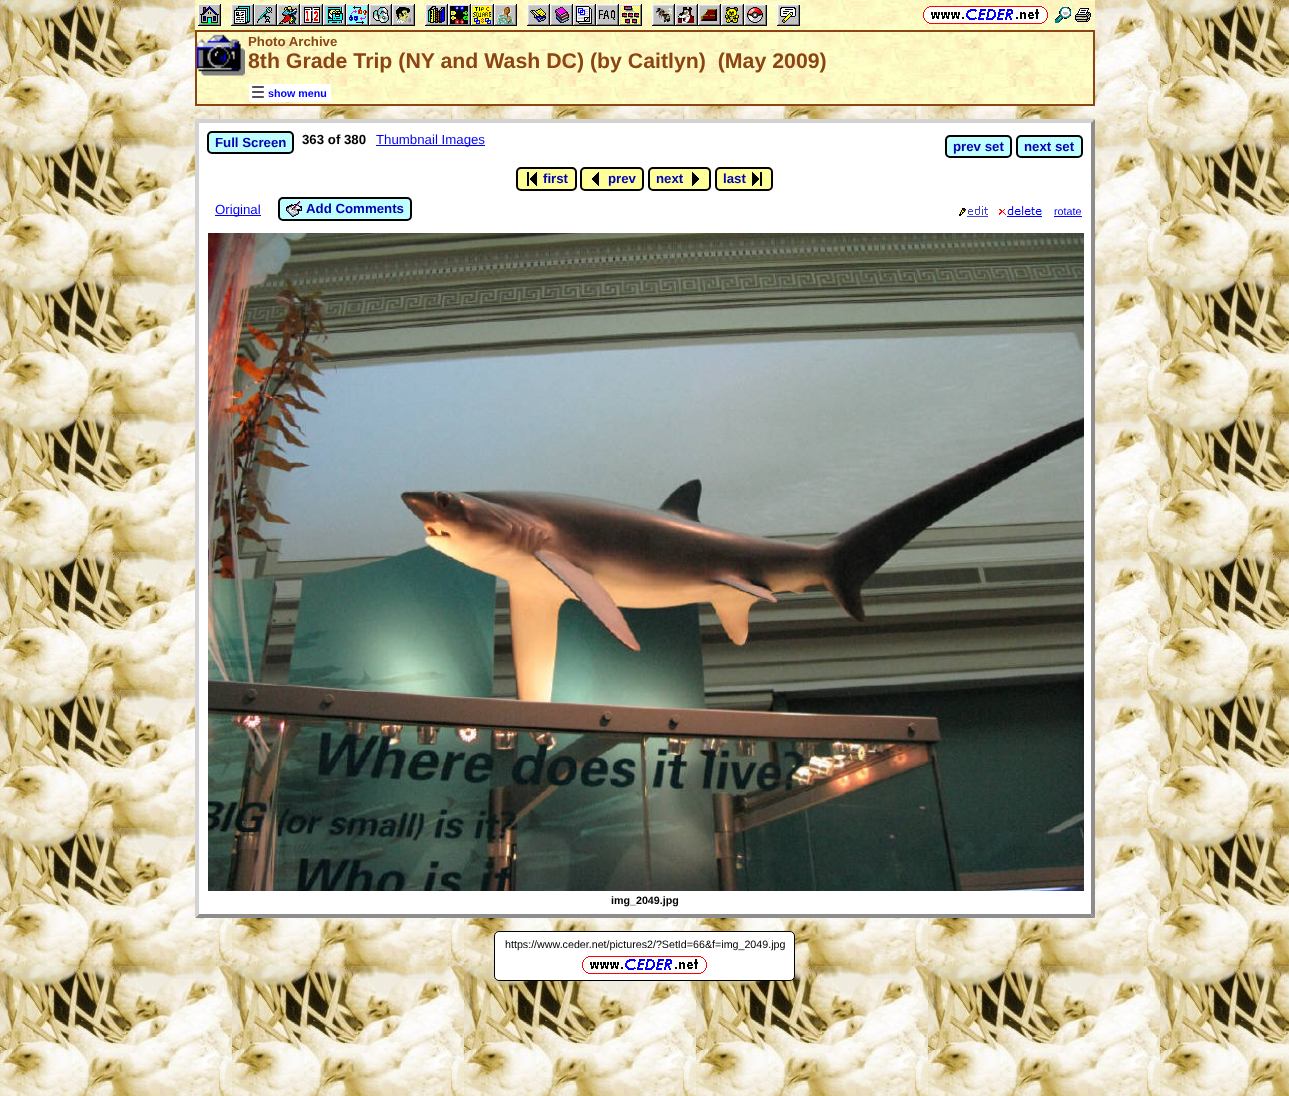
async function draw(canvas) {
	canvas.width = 1289;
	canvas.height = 1096;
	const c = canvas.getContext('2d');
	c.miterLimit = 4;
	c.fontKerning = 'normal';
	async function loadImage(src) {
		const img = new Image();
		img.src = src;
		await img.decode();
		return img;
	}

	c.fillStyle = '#fff';
	c.fillRect(0, 0, 1289, 1096);
	c.drawImage(await loadImage('img1.png'), 0, 0, 1289, 1096);
	c.drawImage(await loadImage('img2.png'), 195, 0, 900, 30);
	c.drawImage(await loadImage('img3.png'), 923, 6, 125, 18);
	c.drawImage(await loadImage('img4.png'), 1055, 7, 16, 16);
	c.drawImage(await loadImage('img5.png'), 1075, 8, 16, 14);
	c.drawImage(await loadImage('img6.png'), 198, 4, 602, 22);
	c.drawImage(await loadImage('img7.png'), 197, 32, 896, 72);
	c.strokeStyle = '#8b4513';
	c.lineWidth = 2;
	c.strokeRect(196, 31, 898, 74);
	c.drawImage(await loadImage('img8.png'), 197, 34, 48, 42);
	c.font = 'bold 13.25px Liberation Sans';
	c.fillStyle = '#8b4513';
	c.fillText('Photo Archive', 248, 46);
	c.drawImage(await loadImage('img9.png'), 248, 49, 841, 25);
	c.font = 'bold 21.3px Liberation Sans';
	c.fillText('8th Grade Trip (NY and Wash DC) (by Caitlyn)  (May 2009)', 248, 68);
	c.fillStyle = '#fff';
	c.fillRect(249, 84, 82, 18);
	c.drawImage(await loadImage('img10.png'), 252, 86, 12, 12);
	c.font = 'bold 10.7px Liberation Sans';
	c.fillStyle = '#00f';
	c.fillText('show menu', 268, 97);
	c.fillStyle = '#fff';
	c.fillRect(195, 119, 900, 799);
	c.fillStyle = '#d3d3d3';
	c.beginPath();
	c.moveTo(195, 119);
	c.lineTo(1095, 119);
	c.lineTo(1091, 123);
	c.lineTo(199, 123);
	c.closePath();
	c.fill();
	c.fillStyle = '#8d8d8d';
	c.beginPath();
	c.moveTo(1095, 119);
	c.lineTo(1095, 918);
	c.lineTo(1091, 914);
	c.lineTo(1091, 123);
	c.closePath();
	c.fill();
	c.beginPath();
	c.moveTo(1095, 918);
	c.lineTo(195, 918);
	c.lineTo(199, 914);
	c.lineTo(1091, 914);
	c.closePath();
	c.fill();
	c.fillStyle = '#d3d3d3';
	c.beginPath();
	c.moveTo(195, 918);
	c.lineTo(195, 119);
	c.lineTo(199, 123);
	c.lineTo(199, 914);
	c.closePath();
	c.fill();
	c.fillStyle = '#bfffff';
	c.beginPath();
	c.roundRect(208, 132, 85, 21, 4);
	c.fill();
	c.strokeStyle = '#000';
	c.stroke();
	c.font = 'bold 13.25px Liberation Sans';
	c.fillStyle = '#0000b0';
	c.fillText('Full Screen', 215, 147);
	c.fillStyle = '#000';
	c.fillText('363 of 380', 302, 144);
	c.fillStyle = '#00f';
	c.fillRect(376, 145, 109, 1);
	c.font = '13.25px Liberation Sans';
	c.fillText('Thumbnail Images', 376, 144);
	c.fillStyle = '#bfffff';
	c.beginPath();
	c.roundRect(946, 136, 65, 21, 4);
	c.fill();
	c.stroke();
	c.font = 'bold 13.25px Liberation Sans';
	c.fillStyle = '#0000b0';
	c.fillText('prev set', 953, 151);
	c.fillStyle = '#bfffff';
	c.beginPath();
	c.roundRect(1017, 136, 65, 21, 4);
	c.fill();
	c.stroke();
	c.fillStyle = '#0000b0';
	c.fillText('next set', 1024, 151);
	c.fillStyle = '#ff9';
	c.beginPath();
	c.roundRect(517, 168, 59, 22, 4);
	c.fill();
	c.stroke();
	c.drawImage(await loadImage('img11.png'), 527, 172, 10, 14);
	c.fillStyle = '#0000b0';
	c.fillText('first', 543, 183);
	c.fillStyle = '#ff9';
	c.beginPath();
	c.roundRect(581, 168, 62, 22, 4);
	c.fill();
	c.stroke();
	c.drawImage(await loadImage('img12.png'), 592, 172, 7, 14);
	c.fillStyle = '#0000b0';
	c.fillText('prev', 608, 183);
	c.fillStyle = '#ff9';
	c.beginPath();
	c.roundRect(649, 168, 61, 22, 4);
	c.fill();
	c.stroke();
	c.fillStyle = '#0000b0';
	c.fillText('next', 656, 183);
	c.drawImage(await loadImage('img13.png'), 692, 172, 7, 14);
	c.fillStyle = '#ff9';
	c.beginPath();
	c.roundRect(716, 168, 56, 22, 4);
	c.fill();
	c.stroke();
	c.fillStyle = '#0000b0';
	c.fillText('last', 723, 183);
	c.drawImage(await loadImage('img14.png'), 752, 172, 10, 14);
	c.fillStyle = '#00f';
	c.fillRect(215, 215, 46, 1);
	c.font = '13.25px Liberation Sans';
	c.fillText('Original', 215, 214);
	c.fillStyle = '#bfffff';
	c.beginPath();
	c.roundRect(279, 198, 132, 22, 4);
	c.fill();
	c.stroke();
	c.drawImage(await loadImage('img15.png'), 286, 201, 16, 16);
	c.font = 'bold 13.25px Liberation Sans';
	c.fillStyle = '#0000b0';
	c.fillText('Add Comments', 306, 213);
	c.drawImage(await loadImage('img16.png'), 959, 206, 29, 11);
	c.drawImage(await loadImage('img17.png'), 999, 206, 43, 11);
	c.font = '10.7px Liberation Sans';
	c.fillStyle = '#00f';
	c.fillText('rotate', 1054, 215);
	c.fillRect(1054, 216, 28, 1);
	c.drawImage(await loadImage('img18.png'), 208, 233, 876, 658);
	c.font = 'bold 10.7px Liberation Sans';
	c.fillStyle = '#000';
	c.fillText('img_2049.jpg', 611, 904);
	c.fillStyle = '#fff';
	c.beginPath();
	c.roundRect(494.5, 931.5, 300, 49, 4.5);
	c.fill();
	c.lineWidth = 1;
	c.stroke();
	c.font = '10.7px Liberation Sans';
	c.fillStyle = '#000';
	c.fillText('https://www.ceder.net/pictures2/?SetId=66&f=img_2049.jpg', 505, 948);
	c.drawImage(await loadImage('img19.png'), 582, 956, 125, 18);
}

draw(document.querySelector('canvas'));
